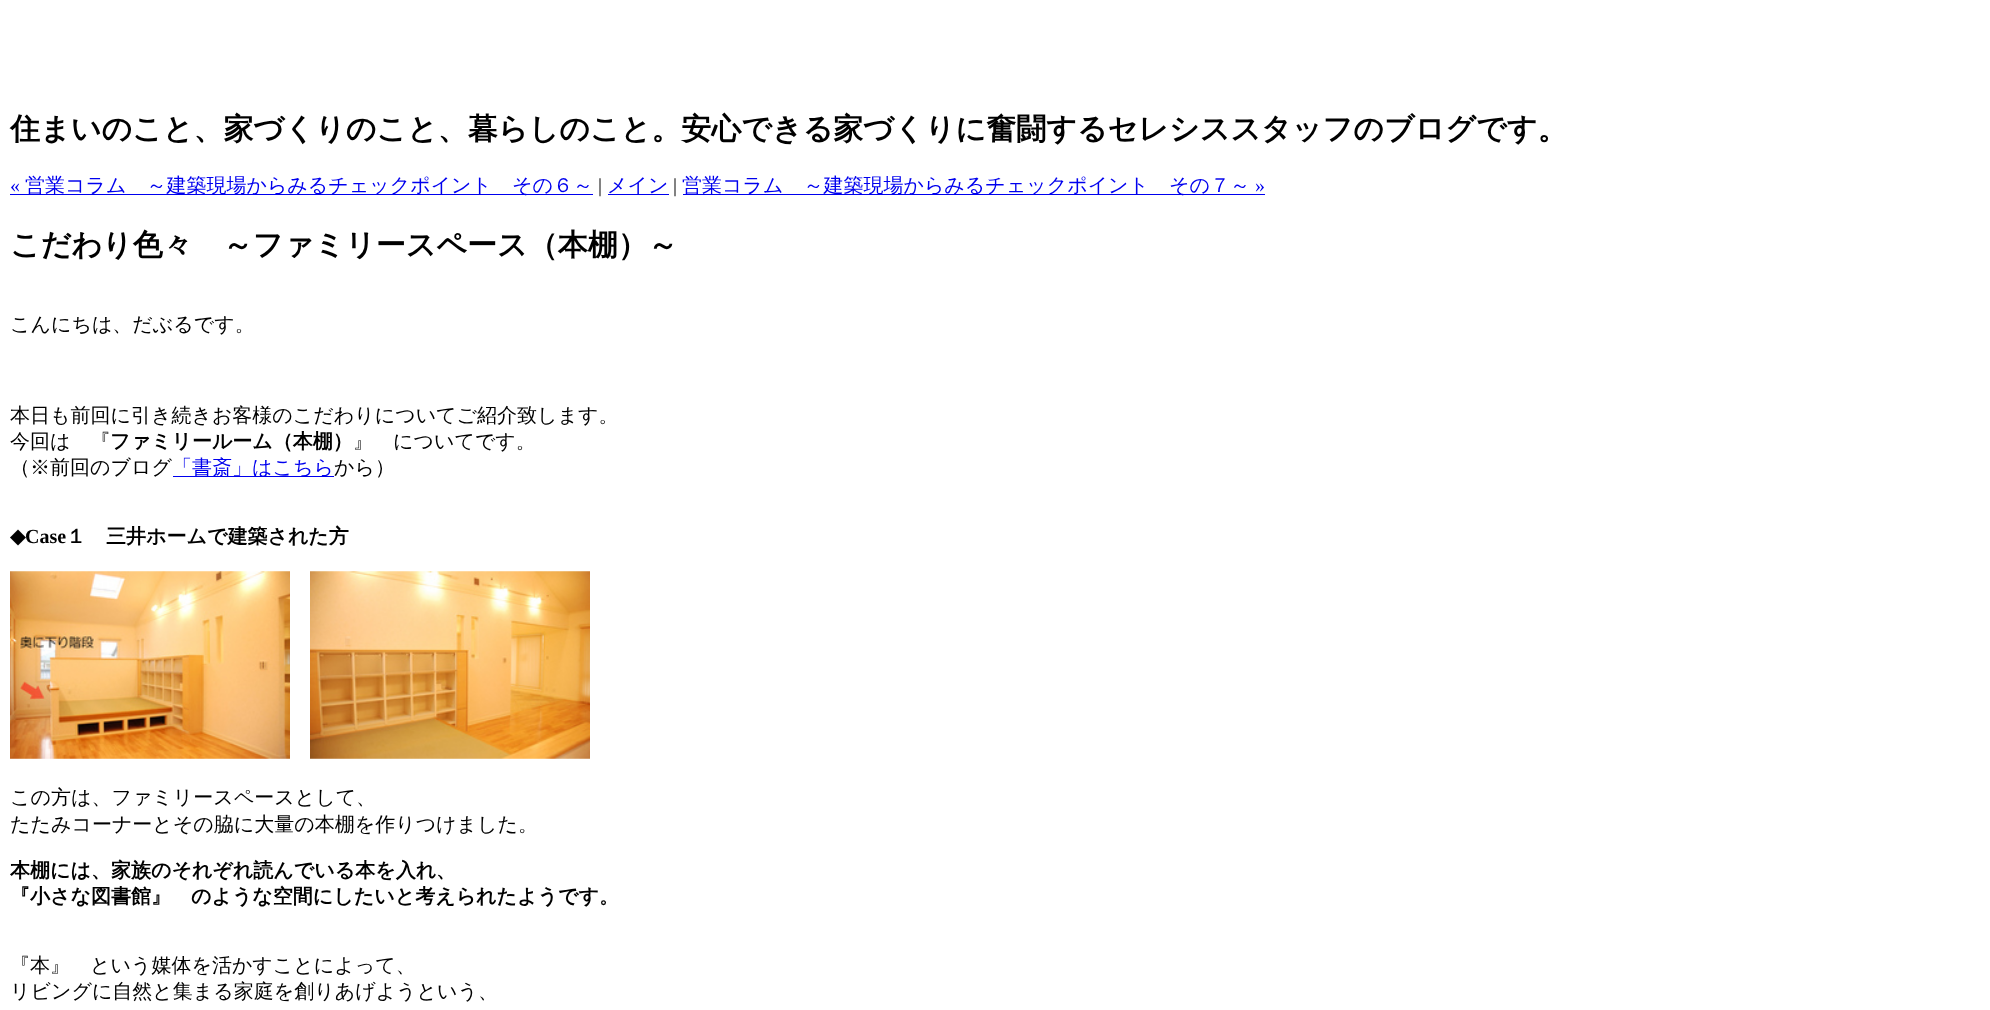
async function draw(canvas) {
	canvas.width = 1990;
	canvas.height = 1010;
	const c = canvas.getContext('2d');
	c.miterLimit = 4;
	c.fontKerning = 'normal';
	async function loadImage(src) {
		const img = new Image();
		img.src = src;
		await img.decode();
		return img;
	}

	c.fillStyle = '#fff';
	c.fillRect(0, 0, 1990, 1010);
	c.font = 'bold 30px WenQuanYi Zen Hei';
	c.fillStyle = '#000';
	c.fillText('住まいのこと、家づくりのこと、暮らしのこと。安心できる家づくりに奮闘するセレシススタッフのブログです。', 10, 139);
	c.font = '20px Liberation Serif';
	c.fillStyle = '#00e';
	c.fillText('«', 10, 192);
	c.fillRect(10, 194, 583, 1);
	c.font = '500 20px WenQuanYi Zen Hei';
	c.fillText('営業コラム　～建築現場からみるチェックポイント　その６～', 25, 192);
	c.font = '20px Liberation Serif';
	c.fillStyle = '#000';
	c.fillText('|', 598, 192);
	c.fillStyle = '#00e';
	c.fillRect(608, 194, 61, 1);
	c.font = '500 20px WenQuanYi Zen Hei';
	c.fillText('メイン', 607, 192);
	c.font = '20px Liberation Serif';
	c.fillStyle = '#000';
	c.fillText('|', 673, 192);
	c.fillStyle = '#00e';
	c.fillRect(683, 194, 582, 1);
	c.font = '500 20px WenQuanYi Zen Hei';
	c.fillText('営業コラム　～建築現場からみるチェックポイント　その７～', 682, 192);
	c.font = '20px Liberation Serif';
	c.fillText('»', 1255, 192);
	c.font = 'bold 30px WenQuanYi Zen Hei';
	c.fillStyle = '#000';
	c.fillText('こだわり色々　～ファミリースペース（本棚）～', 10, 255);
	c.font = '500 20px WenQuanYi Zen Hei';
	for (const [text, x, y] of [
		['こんにちは、だぶるです。', 10, 331],
		['本日も前回に引き続きお客様のこだわりについてご紹介致します。', 10, 422],
		['今回は　『', 10, 448],
	]) {
		c.fillText(text, x, y);
	}
	c.font = 'bold 20px WenQuanYi Zen Hei';
	c.fillText('ファミリールーム（本棚）', 110, 448);
	c.font = '500 20px WenQuanYi Zen Hei';
	c.fillText('』　についてです。', 353, 448);
	c.fillText('（※前回のブログ', 10, 474);
	c.fillStyle = '#00e';
	c.fillRect(173, 476, 161, 1);
	c.fillText('「書斎」はこちら', 172, 474);
	c.fillStyle = '#000';
	c.fillText('から）', 334, 474);
	c.font = 'bold 20px DejaVu Sans';
	c.fillText('◆', 10, 543);
	c.font = 'bold 20px Liberation Serif';
	c.fillText('Case', 25, 543);
	c.font = 'bold 20px WenQuanYi Zen Hei';
	c.fillText('１　三井ホームで建築された方', 66, 543);
	c.drawImage(await loadImage('img1.png'), 10, 571, 280, 188);
	c.drawImage(await loadImage('img2.png'), 310, 571, 280, 188);
	c.font = '500 20px WenQuanYi Zen Hei';
	c.fillText('この方は、ファミリースペースとして、', 10, 804);
	c.fillText('たたみコーナーとその脇に大量の本棚を作りつけました。', 10, 831);
	c.font = 'bold 20px WenQuanYi Zen Hei';
	c.fillText('本棚には、家族のそれぞれ読んでいる本を入れ、', 10, 877);
	c.fillText('『小さな図書館』　のような空間にしたいと考えられたようです。', 10, 903);
	c.font = '500 20px WenQuanYi Zen Hei';
	c.fillText('『本』　という媒体を活かすことによって、', 10, 972);
	c.fillText('リビングに自然と集まる家庭を創りあげようという、', 10, 998);
}

draw(document.querySelector('canvas'));
